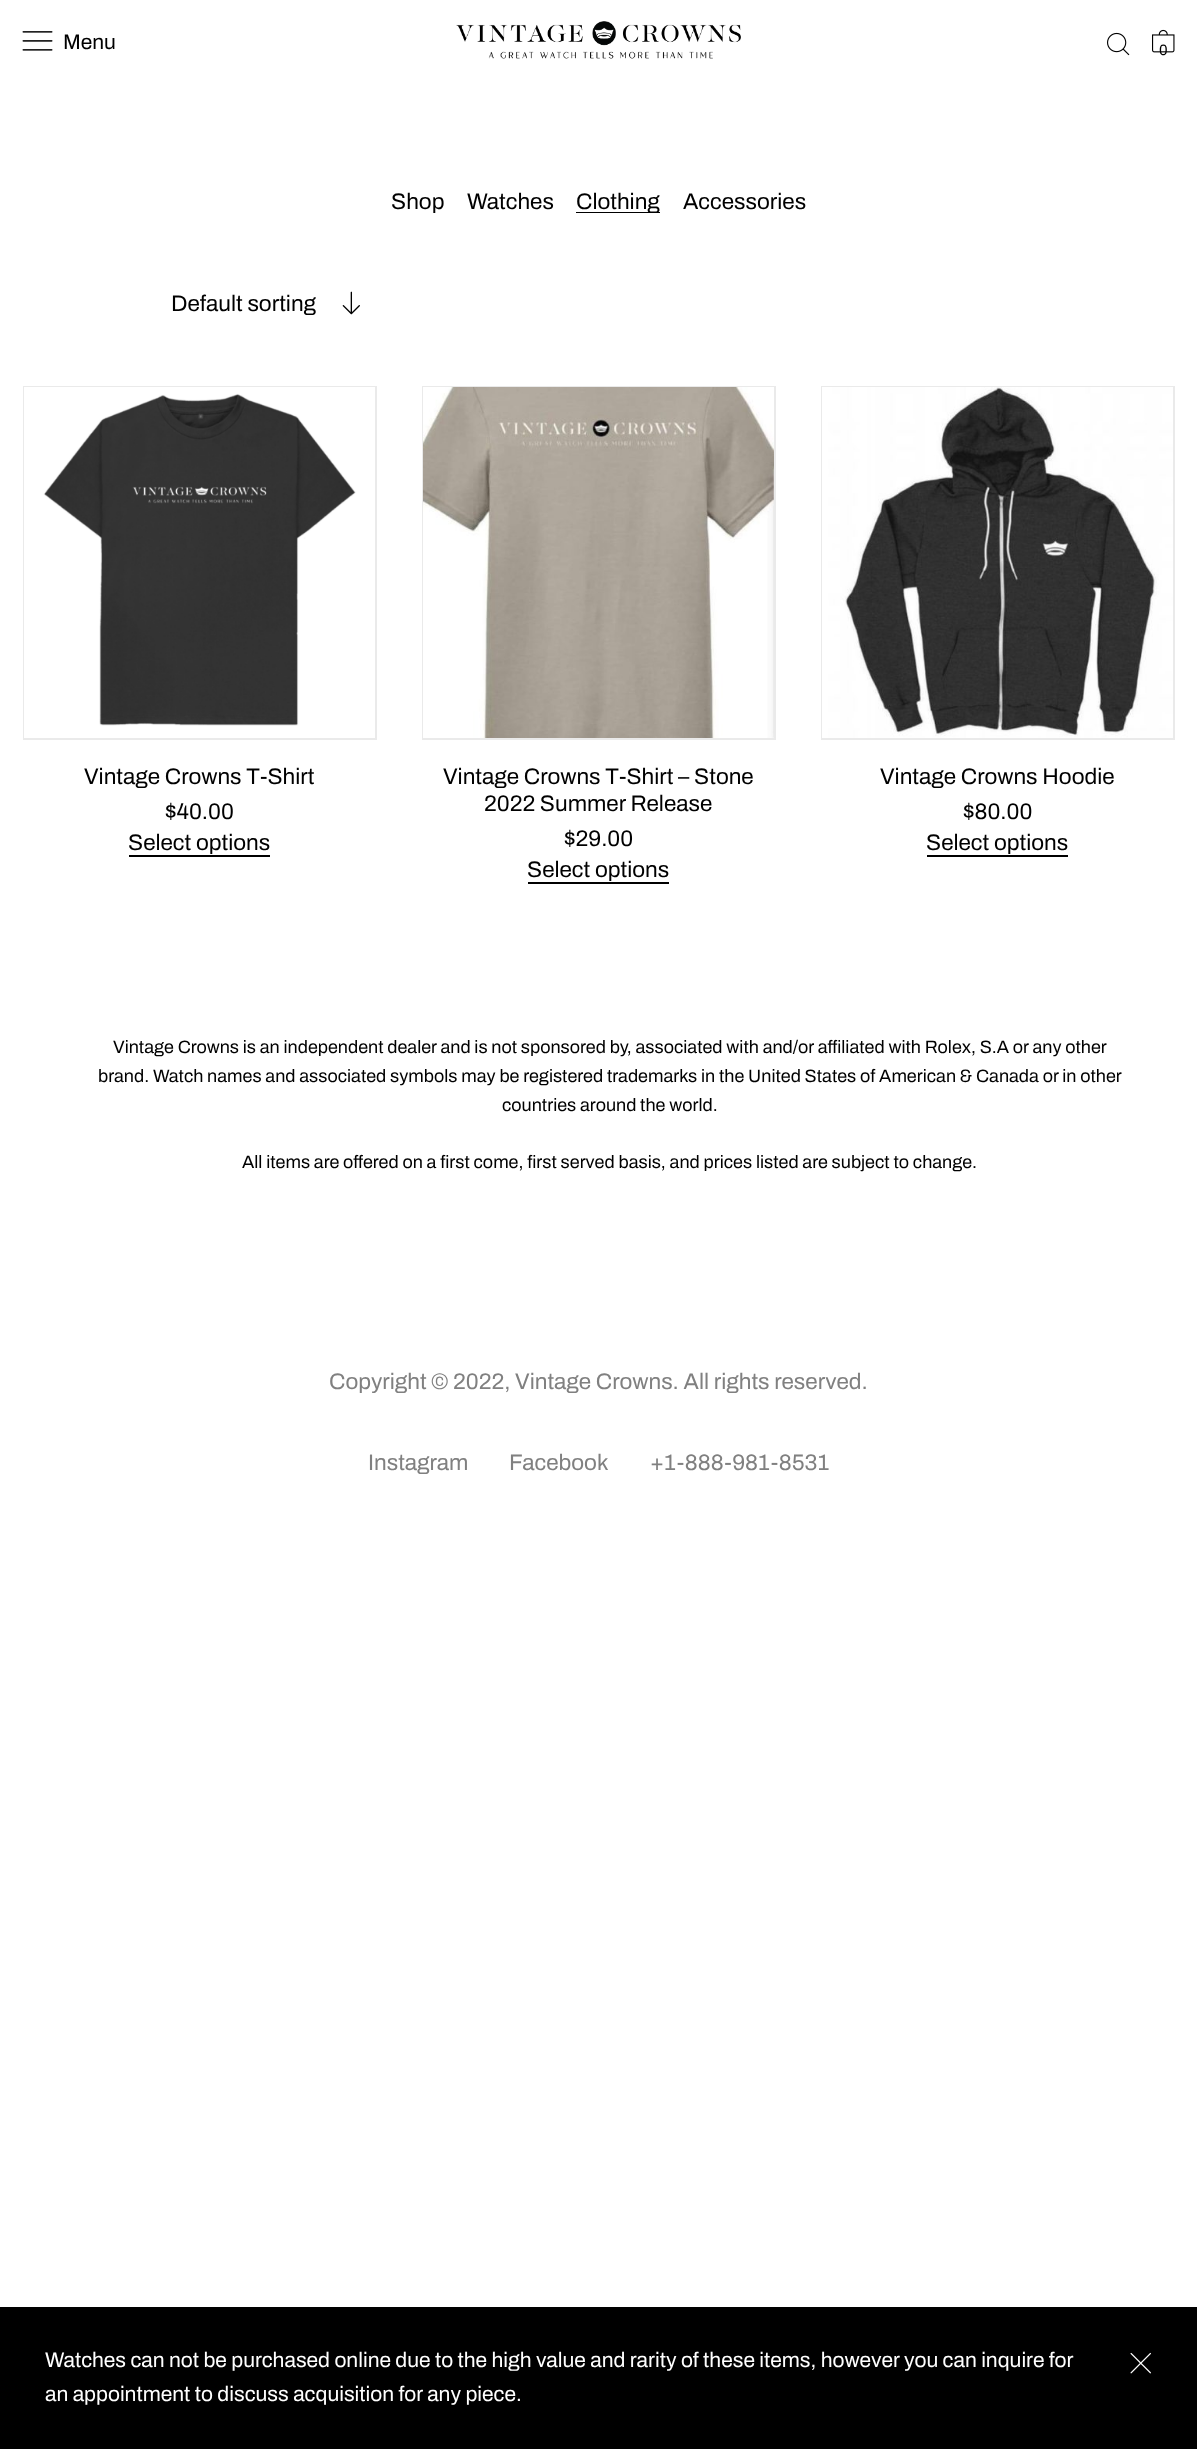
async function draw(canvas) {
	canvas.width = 1197;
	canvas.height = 2449;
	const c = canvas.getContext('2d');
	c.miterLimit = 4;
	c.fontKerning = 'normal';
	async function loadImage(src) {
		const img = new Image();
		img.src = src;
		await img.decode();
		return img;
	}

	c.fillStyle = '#fff';
	c.fillRect(0, 0, 1197, 2449);
	c.drawImage(await loadImage('img1.png'), 22, 31, 31, 20);
	c.font = '21px Archivo';
	c.fillStyle = '#000';
	c.fillText('Menu', 63, 49);
	c.drawImage(await loadImage('img2.png'), 456, 21, 285, 38);
	c.drawImage(await loadImage('img3.png'), 1107, 32, 23, 24);
	c.drawImage(await loadImage('img4.png'), 1152, 29, 23, 24);
	c.font = '15px Archivo';
	c.fillText('0', 1159, 55);
	c.font = '22.5px Archivo';
	c.fillText('Shop', 391, 209);
	c.fillText('Watches', 467, 209);
	c.fillRect(576, 212, 84, 1);
	for (const [text, x, y] of [
		['Clothing', 576, 209],
		['Accessories', 683, 209],
		['Default sorting', 171, 311],
	]) {
		c.fillText(text, x, y);
	}
	c.drawImage(await loadImage('img5.png'), 342, 291, 18, 24);
	c.strokeStyle = '#eaeaea';
	c.lineWidth = 2;
	c.strokeRect(24, 387, 352, 352);
	c.drawImage(await loadImage('img6.png'), 24, 387, 351, 351);
	c.fillText('Vintage Crowns T-Shirt', 84, 784);
	c.fillText('$40.00', 165, 819);
	c.fillRect(129, 855, 141, 2);
	c.fillText('Select options', 128, 850);
	c.strokeRect(423, 387, 352, 352);
	c.drawImage(await loadImage('img7.png'), 423, 387, 351, 351);
	for (const [text, x, y] of [
		['Vintage Crowns T-Shirt – Stone', 443, 784],
		['2022 Summer Release', 484, 811],
		['$29.00', 564, 846],
	]) {
		c.fillText(text, x, y);
	}
	c.fillRect(528, 882, 141, 2);
	c.fillText('Select options', 527, 877);
	c.strokeRect(822, 387, 352, 352);
	c.drawImage(await loadImage('img8.png'), 822, 387, 351, 351);
	c.fillText('Vintage Crowns Hoodie', 880, 784);
	c.fillText('$80.00', 963, 819);
	c.fillRect(927, 855, 141, 2);
	c.fillText('Select options', 926, 850);
	c.font = '18px Archivo';
	for (const [text, x, y] of [
		['Vintage Crowns is an independent dealer and is not sponsored by, associated with and/or affiliated with Rolex, S.A or any other', 113, 1053],
		['brand. Watch names and associated symbols may be registered trademarks in the United States of American & Canada or in other', 98, 1082],
		['countries around the world.', 502, 1111],
		['All items are offered on a first come, first served basis, and prices listed are subject to change.', 242, 1168],
	]) {
		c.fillText(text, x, y);
	}
	c.font = '22.5px Archivo';
	c.fillStyle = '#808080';
	for (const [text, x, y] of [
		['Copyright © 2022, Vintage Crowns. All rights reserved.', 329, 1389],
		['Instagram', 368, 1470],
		['Facebook', 509, 1470],
		['+1-888-981-8531', 650, 1470],
	]) {
		c.fillText(text, x, y);
	}
	c.fillStyle = '#000';
	c.fillRect(0, 2307, 1197, 142);
	c.font = '21px Archivo';
	c.fillStyle = '#fff';
	c.fillText('Watches can not be purchased online due to the high value and rarity of these items, however you can inquire for', 45, 2367);
	c.drawImage(await loadImage('img9.png'), 1130, 2352, 21, 22);
	c.fillText('an appointment to discuss acquisition for any piece.', 45, 2401);
}

draw(document.querySelector('canvas'));
